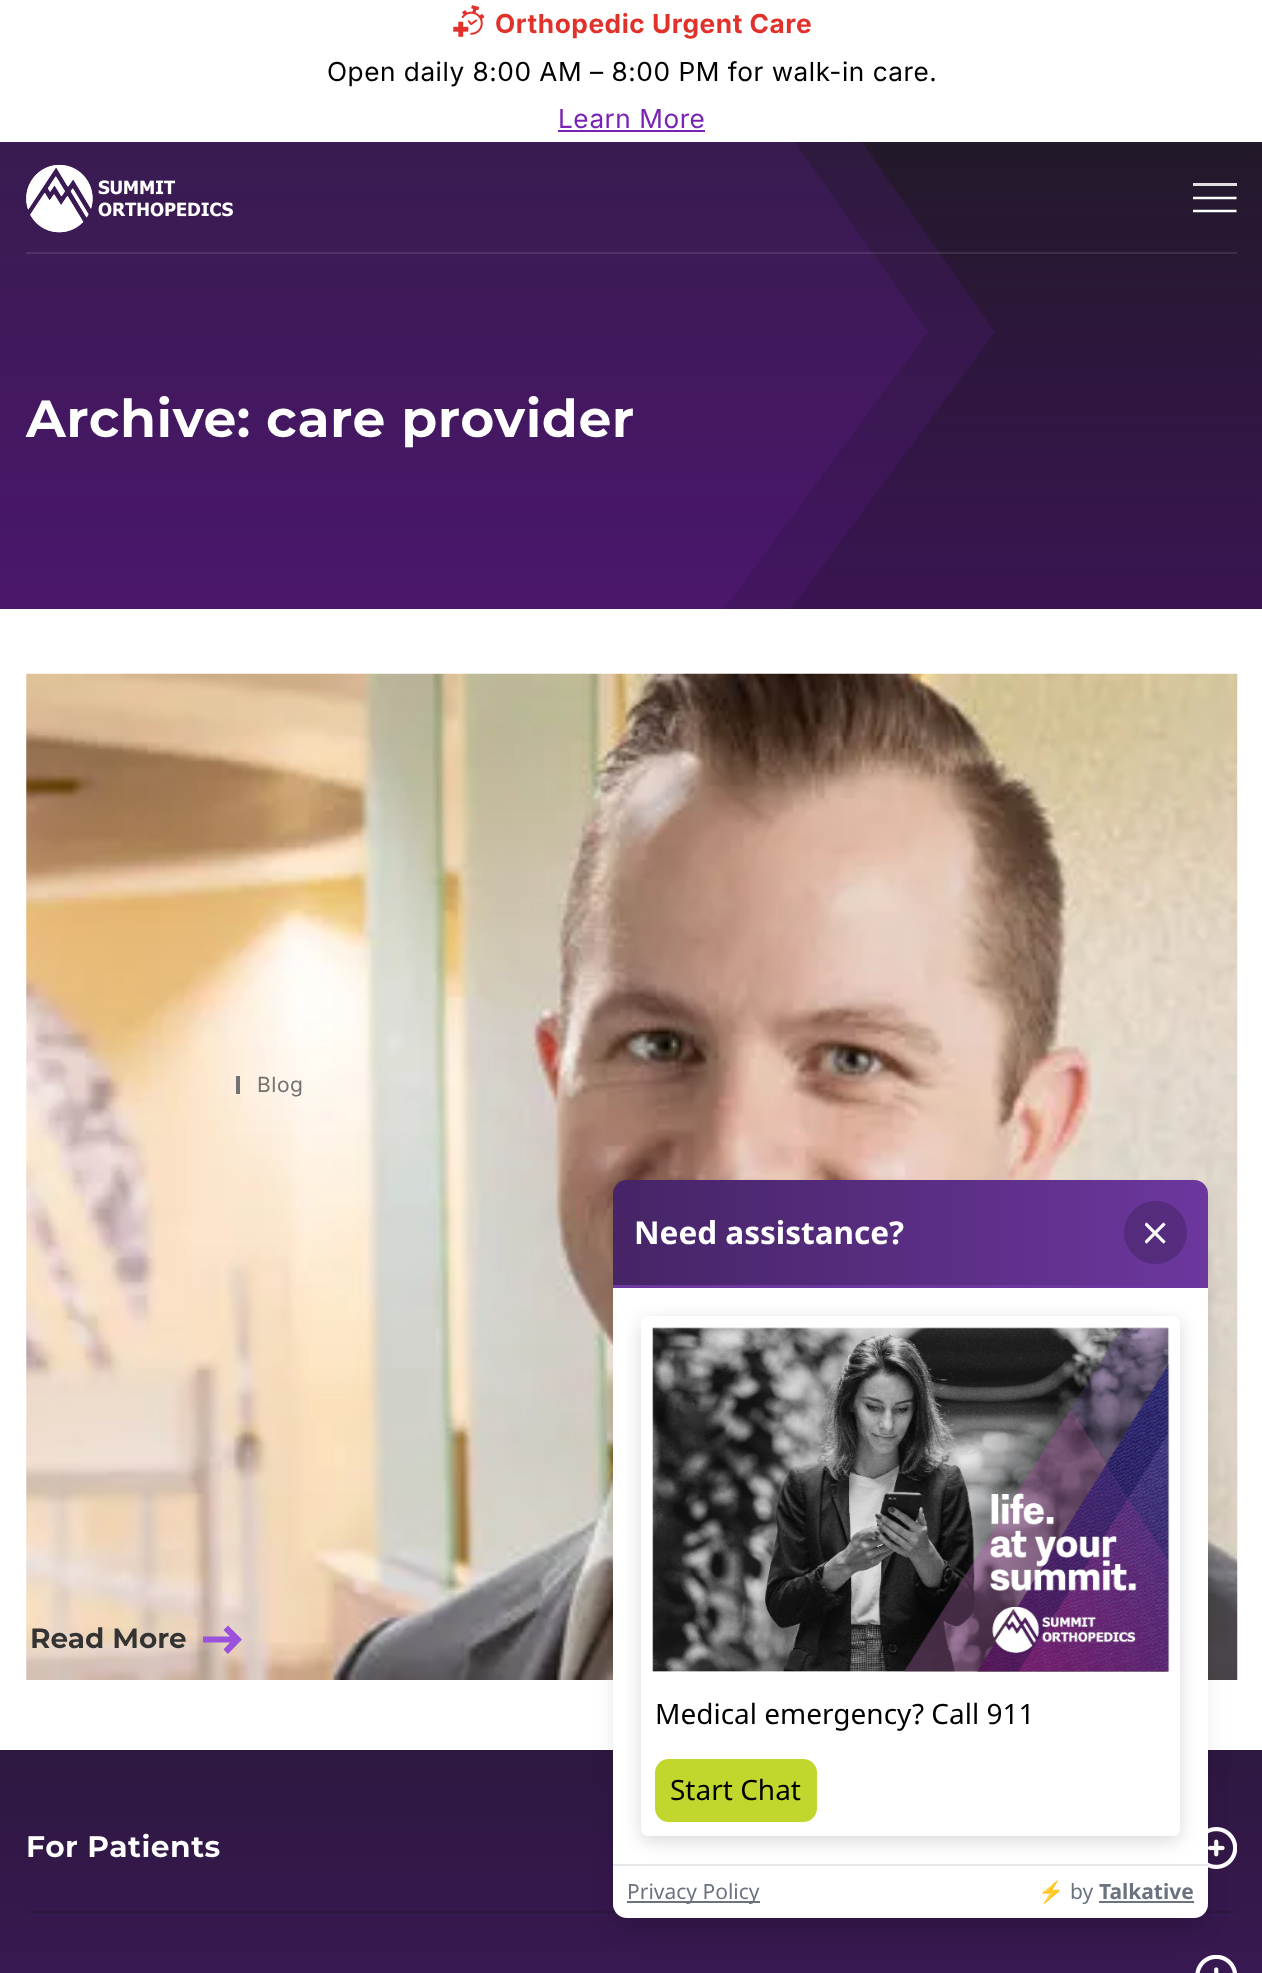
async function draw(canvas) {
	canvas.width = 1262;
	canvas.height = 1973;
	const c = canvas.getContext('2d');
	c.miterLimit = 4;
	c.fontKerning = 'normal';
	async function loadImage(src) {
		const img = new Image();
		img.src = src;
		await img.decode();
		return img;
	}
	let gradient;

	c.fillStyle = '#fff';
	c.fillRect(0, 0, 1262, 1973);
	gradient = c.createLinearGradient(632, 142, 632, 609);
	gradient.addColorStop(0, '#22192a');
	gradient.addColorStop(1, '#3a1452');
	c.fillStyle = gradient;
	c.fillRect(0, 142, 1262, 467);
	c.fillStyle = '#7921b326';
	c.beginPath();
	c.moveTo(928, 332);
	c.lineTo(724, 609);
	c.lineTo(-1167, 609);
	c.lineTo(-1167, 51);
	c.lineTo(731, 51);
	c.closePath();
	c.fill();
	c.beginPath();
	c.moveTo(995, 332);
	c.lineTo(791, 609);
	c.lineTo(-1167, 609);
	c.lineTo(-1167, 51);
	c.lineTo(798, 51);
	c.closePath();
	c.fill();
	c.fillStyle = '#fff';
	c.fillRect(0, 51, 862, 91);
	c.drawImage(await loadImage('img1.png'), 453, 5, 32, 32);
	c.letterSpacing = '0.55px';
	c.font = 'bold 26.25px Inter';
	c.fillStyle = '#e0312b';
	c.fillText('Orthopedic Urgent Care', 495, 33);
	c.font = '26.25px "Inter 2"';
	c.fillStyle = '#000';
	c.fillText('Open daily 8:00 AM – 8:00 PM for walk-in care.', 327, 81);
	c.fillStyle = '#7923b5';
	c.fillText('Learn More', 558, 128);
	c.fillRect(558, 130, 147, 2);
	c.drawImage(await loadImage('img2.png'), 26, 164, 207, 69);
	c.fillStyle = '#e2e0e3';
	c.fillRect(1193, 183, 44, 3);
	c.beginPath();
	c.moveTo(1193, 198);
	c.lineTo(1236.5, 198);
	c.moveTo(1193, 198);
	c.lineTo(1236.5, 198);
	c.moveTo(1193, 211);
	c.lineTo(1236.5, 211);
	c.strokeStyle = '#fff';
	c.lineWidth = 2.6;
	c.stroke();
	c.fillStyle = '#ffffff1a';
	c.fillRect(26, 252, 1211, 2);
	c.font = 'bold 52.25px Montserrat';
	c.fillStyle = '#fff';
	c.fillText('Archive: care provider', 26, 437);
	c.drawImage(await loadImage('img3.png'), 26, 673, 1212, 1007);
	c.fillStyle = '#727272';
	c.fillRect(236, 1076, 4, 18);
	c.font = '21px Inter';
	c.fillText('Blog', 257, 1092);
	c.letterSpacing = '0px';
	c.font = 'bold 28px Montserrat';
	c.fillStyle = '#333';
	c.fillText('Read More', 30, 1648);
	c.fillStyle = '#9a51db';
	c.beginPath();
	c.moveTo(228, 1654);
	c.lineTo(223.5, 1649.5);
	c.lineTo(230, 1642.5);
	c.lineTo(203, 1642.5);
	c.lineTo(203, 1636.5);
	c.lineTo(230, 1636.5);
	c.lineTo(223.5, 1630);
	c.lineTo(228, 1625.5);
	c.lineTo(242, 1639.5);
	c.closePath();
	c.fill();
	gradient = c.createLinearGradient(632, 1750, 632, 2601);
	gradient.addColorStop(0, '#2d1840');
	gradient.addColorStop(1, '#581980');
	c.fillStyle = gradient;
	c.fillRect(0, 1750, 1262, 223);
	c.fillStyle = '#2d1840';
	c.fillRect(26, 1911, 1211, 2);
	c.drawImage(await loadImage('img6.png'), 1208, 1827, 29, 42);
	c.fillStyle = '#0000000d';
	c.filter = 'blur(5px)';
	c.beginPath();
	c.roundRect(616, 1190, 588, 732, 11);
	c.fill();
	c.filter = 'none';
	c.drawImage(await loadImage('img7.png'), 1195, 1955, 42, 18);
	c.fillStyle = '#0000001a';
	c.filter = 'blur(13px)';
	c.beginPath();
	c.roundRect(618, 1202, 584, 728, 9);
	c.fill();
	c.filter = 'none';
	gradient = c.createLinearGradient(613, 1232, 1208, 1232);
	gradient.addColorStop(0, '#462466');
	gradient.addColorStop(1, '#6c379e');
	c.fillStyle = gradient;
	c.beginPath();
	c.roundRect(613, 1180, 595, 105, [14, 14, 0, 0]);
	c.fill();
	c.fillStyle = '#6c379e';
	c.fillRect(613, 1285, 595, 3);
	c.font = 'bold 31.5px Noto Sans';
	c.fillStyle = '#fff';
	c.fillText('Need assistance?', 634, 1244);
	c.fillStyle = '#2c16404d';
	c.beginPath();
	c.arc(1155.5, 1232.5, 31.5, 0, 2 * Math.PI);
	c.fill();
	c.drawImage(await loadImage('img4.png'), 1145, 1222, 21, 22);
	c.fillStyle = '#fff';
	c.fillRect(613, 1288, 595, 576);
	c.beginPath();
	c.roundRect(613, 1866, 595, 52, [0, 0, 14, 14]);
	c.fill();
	c.fillStyle = '#e5e7eb';
	c.fillRect(613, 1864, 595, 2);
	c.fillStyle = '#00000026';
	c.filter = 'blur(9px)';
	c.beginPath();
	c.roundRect(641, 1321, 539, 520, 7);
	c.fill();
	c.filter = 'none';
	c.fillStyle = '#fff';
	c.beginPath();
	c.roundRect(641, 1316, 539, 520, 7);
	c.fill();
	c.drawImage(await loadImage('img5.png'), 652, 1327, 518, 345);
	c.font = '28px Noto Sans';
	c.fillStyle = '#000';
	c.fillText('Medical emergency? Call 911', 655, 1724);
	c.fillStyle = '#c1d72e';
	c.beginPath();
	c.moveTo(669, 1759);
	c.lineTo(803, 1759);
	c.bezierCurveTo(811, 1759, 817, 1765, 817, 1773);
	c.lineTo(817, 1808);
	c.bezierCurveTo(817, 1816, 811, 1822, 803, 1822);
	c.lineTo(669, 1822);
	c.bezierCurveTo(661, 1822, 655, 1816, 655, 1808);
	c.lineTo(655, 1773);
	c.bezierCurveTo(655, 1765, 661, 1759, 669, 1759);
	c.closePath();
	c.fill();
	c.fillStyle = '#000';
	c.fillText('Start Chat', 670, 1800);
	c.fillStyle = '#6b7280';
	c.fillRect(627, 1901, 133, 2);
	c.font = '21px Noto Sans';
	c.fillText('Privacy Policy', 627, 1899);
	c.font = '21px Noto Color Emoji';
	c.fillText('⚡', 1038, 1899);
	c.font = '21px Noto Sans';
	c.fillText('by', 1070, 1899);
	c.font = 'bold 21px Noto Sans';
	c.fillText('Talkative', 1099, 1899);
	c.fillRect(1099, 1901, 95, 2);
	c.letterSpacing = '0.55px';
	c.font = 'bold 29.75px Montserrat';
	c.fillStyle = '#fff';
	c.fillText('For Patients', 26, 1857);
}

draw(document.querySelector('canvas'));
